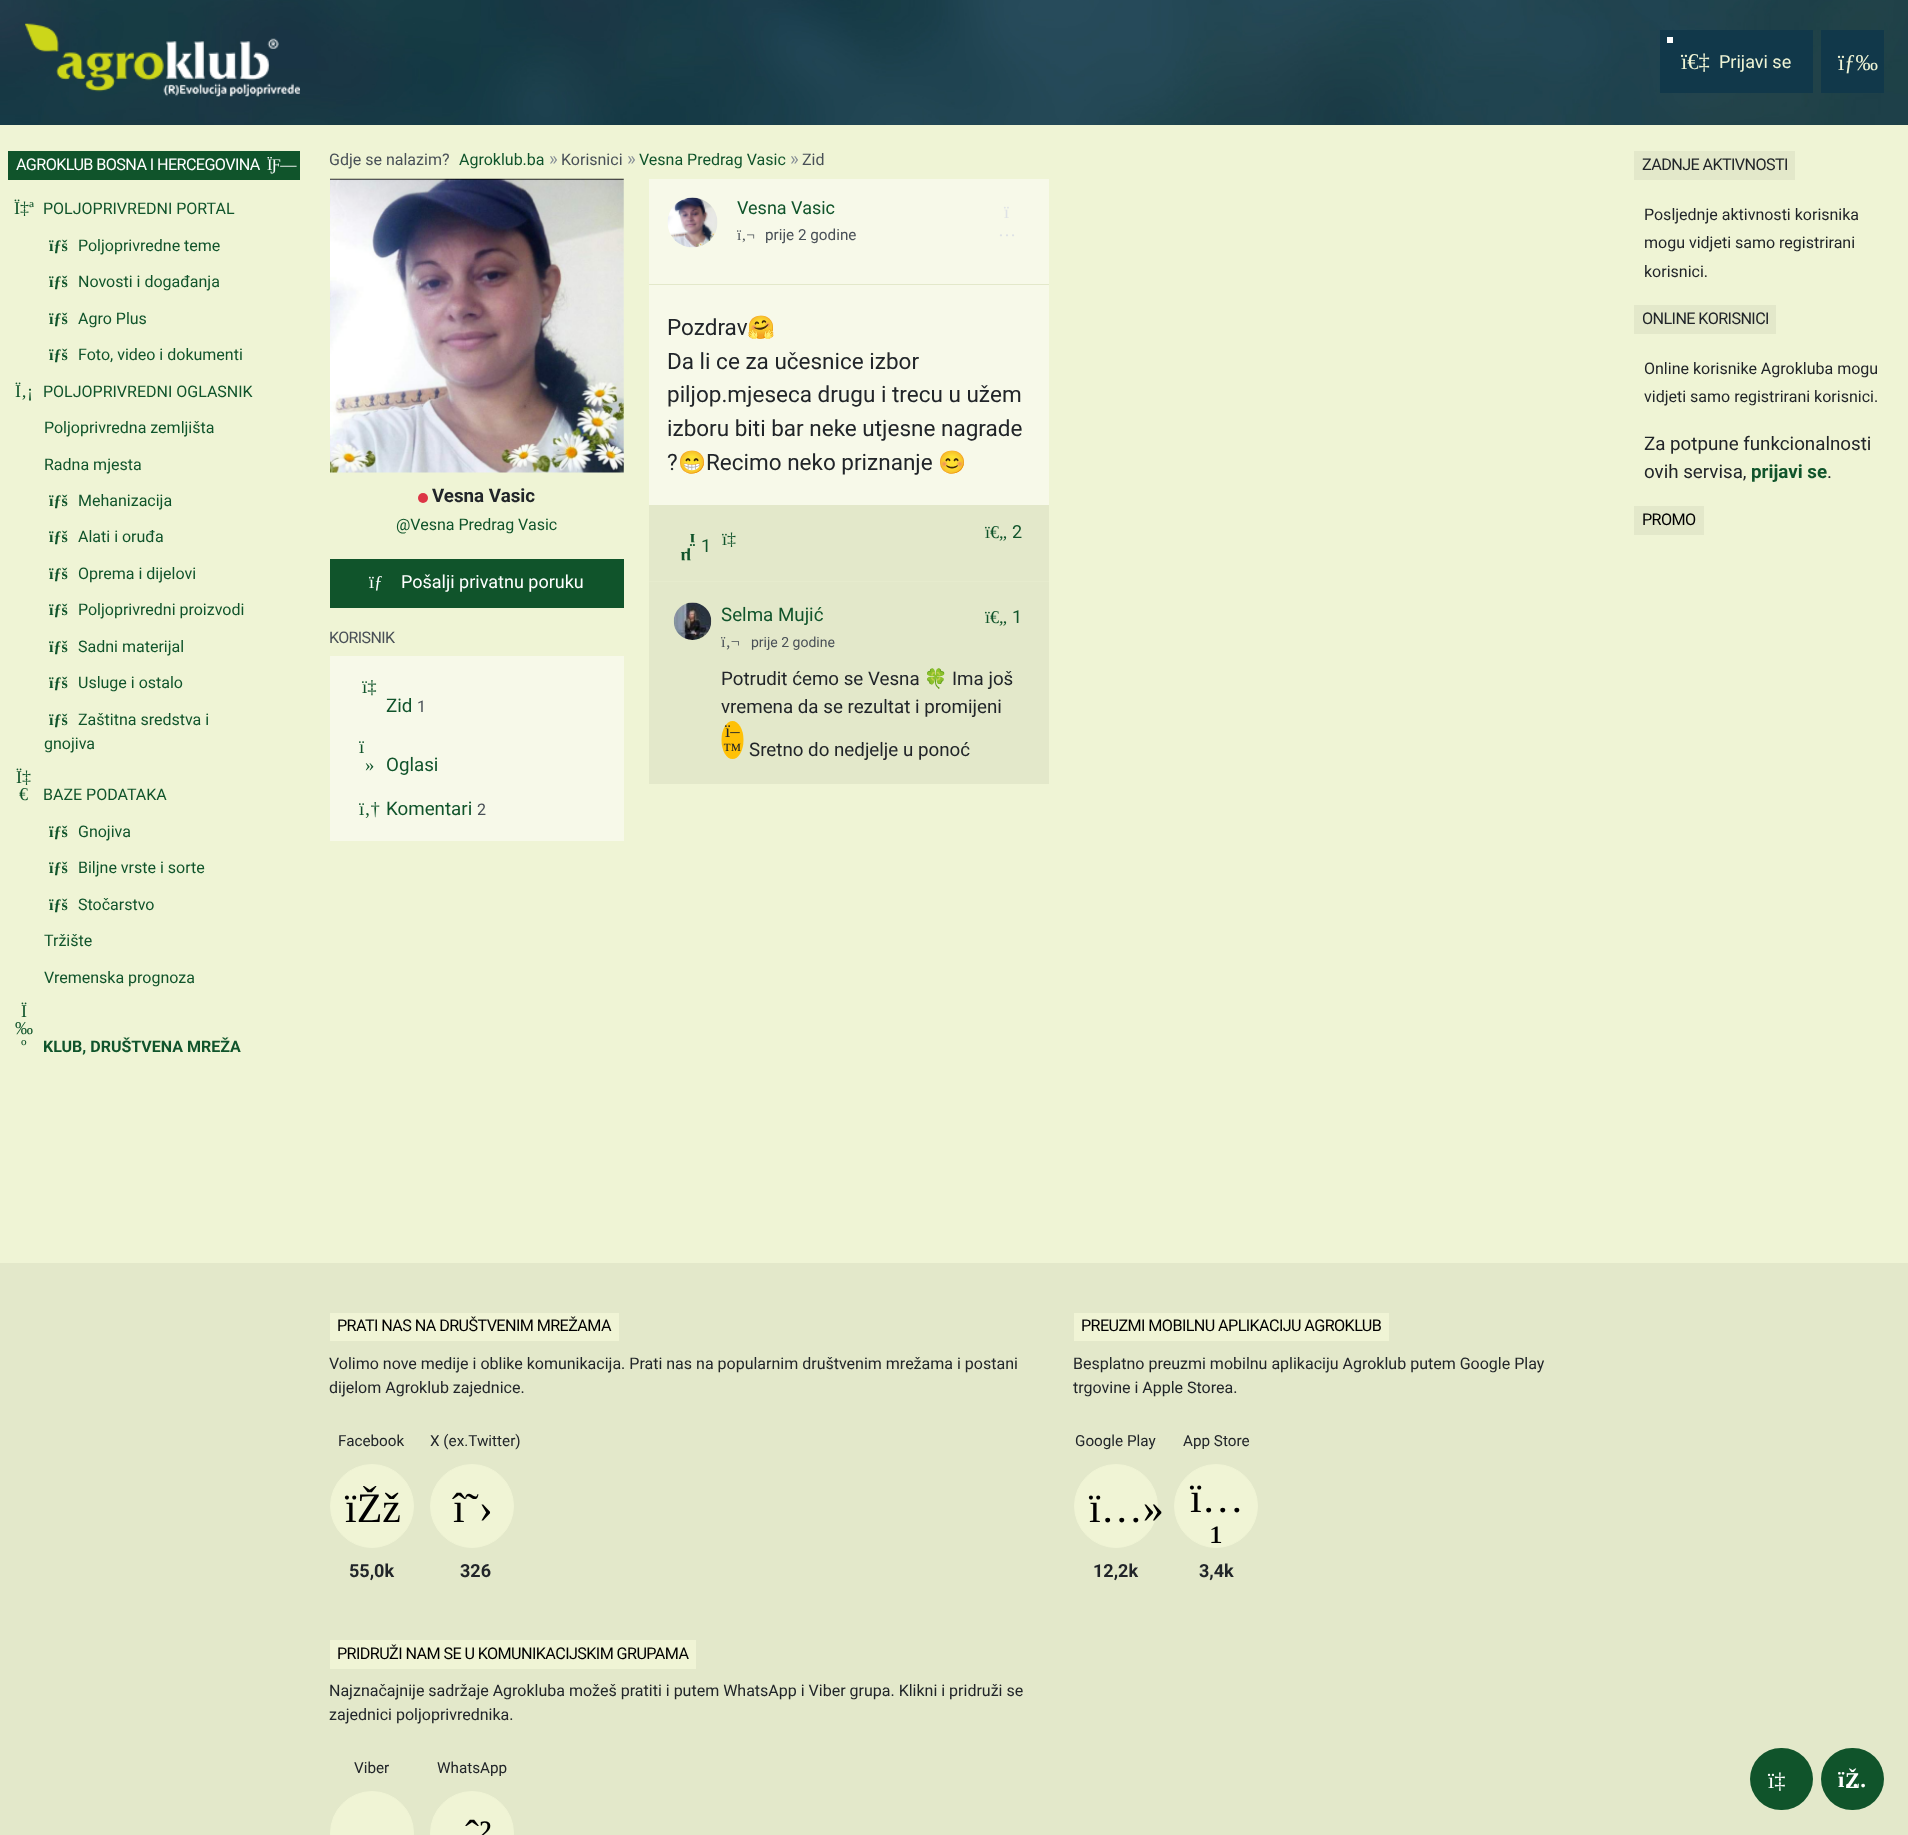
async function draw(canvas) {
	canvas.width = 1908;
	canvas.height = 1835;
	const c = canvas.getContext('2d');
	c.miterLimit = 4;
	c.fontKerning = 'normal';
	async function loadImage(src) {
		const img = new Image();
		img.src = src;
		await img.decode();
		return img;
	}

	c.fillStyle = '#eff4d5';
	c.fillRect(0, 0, 1908, 1835);
	c.drawImage(await loadImage('img1.png'), 0, 0, 1908, 125);
	c.drawImage(await loadImage('img2.png'), 25, 23, 275, 74);
	c.fillStyle = '#11384a';
	c.fillRect(1660, 30, 153, 63);
	c.fillStyle = '#fff';
	c.fillRect(1667, 37, 6, 6);
	c.font = '22.5px Liberation Serif';
	c.fillStyle = '#eff4d5';
	c.fillText('ï€‡', 1681, 69);
	c.font = '18px Roboto';
	c.fillText('Prijavi se', 1719, 68);
	c.fillStyle = '#11384a';
	c.fillRect(1821, 30, 63, 63);
	c.font = '22.5px Liberation Serif';
	c.fillStyle = '#eff4d5';
	c.fillText('ïƒ‰', 1838, 70);
	c.fillStyle = '#10542b';
	c.fillRect(8, 151, 292, 29);
	c.letterSpacing = '-0.6px';
	c.font = '16.2px Roboto';
	c.fillStyle = '#fff';
	c.fillText('AGROKLUB BOSNA I HERCEGOVINA', 16, 170);
	c.font = '16.2px Liberation Serif';
	c.fillText('ÏƑ—', 267, 170);
	c.letterSpacing = '0px';
	c.font = '18px Liberation Serif';
	c.fillStyle = '#10542b';
	c.fillText('Ï‡ª', 14, 214);
	c.font = '16px Roboto';
	c.fillText('POLJOPRIVREDNI PORTAL', 43, 214);
	c.font = 'bold 16px Liberation Serif';
	c.fillText('ïƒš', 49, 251);
	c.font = '16px Roboto';
	c.fillText('Poljoprivredne teme', 78, 251);
	c.font = 'bold 16px Liberation Serif';
	c.fillText('ïƒš', 49, 287);
	c.font = '16px Roboto';
	c.fillText('Novosti i događanja', 78, 287);
	c.font = 'bold 16px Liberation Serif';
	c.fillText('ïƒš', 49, 324);
	c.font = '16px Roboto';
	c.fillText('Agro Plus', 78, 324);
	c.font = 'bold 16px Liberation Serif';
	c.fillText('ïƒš', 49, 360);
	c.font = '16px Roboto';
	c.fillText('Foto, video i dokumenti', 78, 360);
	c.font = '18px Liberation Serif';
	c.fillText('Ï‚¡', 15, 397);
	c.font = '16px Roboto';
	for (const [text, x, y] of [
		['POLJOPRIVREDNI OGLASNIK', 43, 397],
		['Poljoprivredna zemljišta', 44, 433],
		['Radna mjesta', 44, 470],
	]) {
		c.fillText(text, x, y);
	}
	c.font = 'bold 16px Liberation Serif';
	c.fillText('ïƒš', 49, 506);
	c.font = '16px Roboto';
	c.fillText('Mehanizacija', 78, 506);
	c.font = 'bold 16px Liberation Serif';
	c.fillText('ïƒš', 49, 542);
	c.font = '16px Roboto';
	c.fillText('Alati i oruđa', 78, 542);
	c.font = 'bold 16px Liberation Serif';
	c.fillText('ïƒš', 49, 579);
	c.font = '16px Roboto';
	c.fillText('Oprema i dijelovi', 78, 579);
	c.font = 'bold 16px Liberation Serif';
	c.fillText('ïƒš', 49, 615);
	c.font = '16px Roboto';
	c.fillText('Poljoprivredni proizvodi', 78, 615);
	c.font = 'bold 16px Liberation Serif';
	c.fillText('ïƒš', 49, 652);
	c.font = '16px Roboto';
	c.fillText('Sadni materijal', 78, 652);
	c.font = 'bold 16px Liberation Serif';
	c.fillText('ïƒš', 49, 688);
	c.font = '16px Roboto';
	c.fillText('Usluge i ostalo', 78, 688);
	c.font = 'bold 16px Liberation Serif';
	c.fillText('ïƒš', 49, 725);
	c.font = '16px Roboto';
	c.fillText('Zaštitna sredstva i', 78, 725);
	c.fillText('gnojiva', 44, 749);
	c.font = '18px Liberation Serif';
	c.fillText('Ï‡', 16, 783);
	c.fillText('€', 19, 800);
	c.font = '16px Roboto';
	c.fillText('BAZE PODATAKA', 43, 800);
	c.font = 'bold 16px Liberation Serif';
	c.fillText('ïƒš', 49, 837);
	c.font = '16px Roboto';
	c.fillText('Gnojiva', 78, 837);
	c.font = 'bold 16px Liberation Serif';
	c.fillText('ïƒš', 49, 873);
	c.font = '16px Roboto';
	c.fillText('Biljne vrste i sorte', 78, 873);
	c.font = 'bold 16px Liberation Serif';
	c.fillText('ïƒš', 49, 910);
	c.font = '16px Roboto';
	for (const [text, x, y] of [
		['Stočarstvo', 78, 910],
		['Tržište', 44, 946],
		['Vremenska prognoza', 44, 983],
	]) {
		c.fillText(text, x, y);
	}
	c.font = '18px Liberation Serif';
	for (const [text, x, y] of [
		['Ï', 21, 1017],
		['‰', 15, 1034],
		['º', 21, 1052],
	]) {
		c.fillText(text, x, y);
	}
	c.font = 'bold 16px Roboto';
	c.fillText('KLUB, DRUŠTVENA MREŽA', 43, 1052);
	c.font = '16px Roboto';
	c.fillStyle = '#495057';
	c.fillText('Gdje se nalazim?', 329, 165);
	c.fillStyle = '#10542b';
	c.fillText('Agroklub.ba', 459, 165);
	c.font = '18.75px Roboto';
	c.fillStyle = '#868e96';
	c.fillText('»', 549, 165);
	c.font = '16px Roboto';
	c.fillStyle = '#495057';
	c.fillText('Korisnici', 561, 165);
	c.font = '18.75px Roboto';
	c.fillStyle = '#868e96';
	c.fillText('»', 627, 165);
	c.font = '16px Roboto';
	c.fillStyle = '#10542b';
	c.fillText('Vesna Predrag Vasic', 639, 165);
	c.font = '18.75px Roboto';
	c.fillStyle = '#868e96';
	c.fillText('»', 790, 165);
	c.font = '16px Roboto';
	c.fillStyle = '#495057';
	c.fillText('Zid', 802, 165);
	c.drawImage(await loadImage('img3.png'), 330, 178, 294, 295);
	c.fillStyle = '#dc3545';
	c.beginPath();
	c.arc(423, 498, 5, 0, 2 * Math.PI);
	c.fill();
	c.font = 'bold 18.75px Roboto';
	c.fillStyle = '#212529';
	c.fillText('Vesna Vasic', 432, 502);
	c.font = '16px Roboto';
	c.fillStyle = '#10542b';
	c.fillText('@Vesna Predrag Vasic', 396, 530);
	c.fillRect(330, 559, 294, 49);
	c.font = '18px Liberation Serif';
	c.fillStyle = '#fff';
	c.fillText('ïƒ', 369, 588);
	c.font = '18px Roboto';
	c.fillText('Pošalji privatnu poruku', 401, 588);
	c.letterSpacing = '-0.6px';
	c.font = '16px Roboto';
	c.fillStyle = '#495057';
	c.fillText('KORISNIK', 329, 643);
	c.fillStyle = '#f7f9e9';
	c.fillRect(330, 656, 294, 185);
	c.letterSpacing = '0px';
	c.font = '18.75px Liberation Serif';
	c.fillStyle = '#10542b';
	c.fillText('ï‡', 362, 693);
	c.font = '18.75px Roboto';
	c.fillText('Zid', 386, 712);
	c.font = '16px Roboto';
	c.fillStyle = '#495057';
	c.fillText('1', 417, 712);
	c.font = '18.75px Liberation Serif';
	c.fillStyle = '#10542b';
	c.fillText('ï', 359, 753);
	c.fillText('»', 365, 771);
	c.font = '18.75px Roboto';
	c.fillText('Oglasi', 386, 771);
	c.font = '18.75px Liberation Serif';
	c.fillText('ï‚†', 359, 815);
	c.font = '18.75px Roboto';
	c.fillText('Komentari', 386, 815);
	c.font = '16px Roboto';
	c.fillStyle = '#495057';
	c.fillText('2', 477, 815);
	c.fillStyle = '#f7f9e9';
	c.fillRect(649, 179, 400, 326);
	c.fillStyle = '#e3e8ca';
	c.fillRect(649, 284, 400, 1);
	c.drawImage(await loadImage('img4.png'), 667, 197, 51, 51);
	c.font = '18px Roboto';
	c.fillStyle = '#10542b';
	c.fillText('Vesna Vasic', 737, 214);
	c.font = '15.25px Liberation Serif';
	c.fillStyle = '#495057';
	c.fillText('ï‚¬', 737, 240);
	c.font = '15.25px Roboto';
	c.fillText('prije 2 godine', 765, 240);
	c.font = '18px Liberation Serif';
	c.fillStyle = '#dee2e6';
	c.fillText('ï', 1004, 218);
	c.fillText('…', 998, 236);
	c.font = '22.5px Roboto';
	c.fillStyle = '#212529';
	c.fillText('Pozdrav', 667, 335);
	c.font = '22.5px Noto Color Emoji';
	c.fillText('🤗', 747, 335);
	c.font = '22.5px Roboto';
	for (const [text, x, y] of [
		['Da li ce za učesnice izbor', 667, 369],
		['piljop.mjeseca drugu i trecu u užem', 667, 402],
		['izboru biti bar neke utjesne nagrade', 667, 436],
		['?', 667, 470],
	]) {
		c.fillText(text, x, y);
	}
	c.font = '22.5px Noto Color Emoji';
	c.fillText('😁', 678, 470);
	c.font = '22.5px Roboto';
	c.fillText('Recimo neko priznanje', 706, 470);
	c.font = '22.5px Noto Color Emoji';
	c.fillText('😊', 938, 470);
	c.fillStyle = '#e3e8ca';
	c.fillRect(649, 505, 400, 279);
	c.font = 'bold 18px Liberation Serif';
	c.fillStyle = '#10542b';
	c.save();
	c.translate(695, 534);
	c.rotate(180 * Math.PI / 180);
	c.fillText('ï', 0, 0);
	c.restore();
	c.save();
	c.translate(691, 552);
	c.rotate(180 * Math.PI / 180);
	c.fillText('µ', 0, 0);
	c.restore();
	c.font = '18px Roboto';
	c.fillText('1', 701, 552);
	c.font = '18px Liberation Serif';
	c.fillText('ï‡', 722, 545);
	c.fillText('ï€„', 985, 538);
	c.font = '18px Roboto';
	c.fillText('2', 1012, 538);
	c.fillStyle = '#e6ebcd';
	c.fillRect(649, 581, 400, 1);
	c.drawImage(await loadImage('img5.png'), 673, 602, 39, 38);
	c.font = '18.75px Roboto';
	c.fillStyle = '#10542b';
	c.fillText('Selma Mujić', 721, 621);
	c.font = '16px Liberation Serif';
	c.fillStyle = '#495057';
	c.fillText('ï‚¬', 721, 647);
	c.font = '14px Roboto';
	c.fillText('prije 2 godine', 751, 647);
	c.font = '18px Liberation Serif';
	c.fillStyle = '#10542b';
	c.fillText('ï€„', 985, 623);
	c.font = '18px Roboto';
	c.fillText('1', 1012, 623);
	c.font = '18.75px Roboto';
	c.fillStyle = '#212529';
	c.fillText('Potrudit ćemo se Vesna', 721, 685);
	c.font = '18.75px Noto Color Emoji';
	c.fillText('🍀', 924, 685);
	c.font = '18.75px Roboto';
	c.fillText('Ima još', 952, 685);
	c.fillText('vremena da se rezultat i promijeni', 721, 713);
	c.fillStyle = '#ffc107';
	c.beginPath();
	c.ellipse(732.5, 740, 11, 19, 0, 0, 2 * Math.PI);
	c.fill();
	c.font = '18.75px Liberation Serif';
	c.fillStyle = '#212529';
	c.fillText('ï–', 725, 737);
	c.fillText('™', 723, 756);
	c.font = '18.75px Roboto';
	c.fillText('Sretno do nedjelje u ponoć', 749, 756);
	c.fillStyle = '#e3e8ca';
	c.fillRect(0, 1263, 1908, 572);
	c.fillStyle = '#10542b';
	c.beginPath();
	c.roundRect(1750, 1748, 63, 62, 31);
	c.fill();
	c.font = '22.5px Liberation Serif';
	c.fillStyle = '#fff';
	c.fillText('ï‡', 1768, 1788);
	c.fillStyle = '#10542b';
	c.beginPath();
	c.roundRect(1821, 1748, 63, 62, 31);
	c.fill();
	c.font = 'bold 22.5px Liberation Serif';
	c.fillStyle = '#fff';
	c.fillText('ï…', 1838, 1787);
	c.fillText('Ž', 1845, 1788);
	c.fillStyle = '#e3e8ca';
	c.fillRect(1634, 151, 161, 29);
	c.letterSpacing = '-0.6px';
	c.font = '16.2px Roboto';
	c.fillStyle = '#212529';
	c.fillText('ZADNJE AKTIVNOSTI', 1642, 170);
	c.letterSpacing = '0px';
	c.font = '16px Roboto';
	for (const [text, x, y] of [
		['Posljednje aktivnosti korisnika', 1644, 220],
		['mogu vidjeti samo registrirani', 1644, 248],
		['korisnici.', 1644, 277],
	]) {
		c.fillText(text, x, y);
	}
	c.fillStyle = '#e3e8ca';
	c.fillRect(1634, 305, 142, 29);
	c.letterSpacing = '-0.6px';
	c.font = '16.2px Roboto';
	c.fillStyle = '#212529';
	c.fillText('ONLINE KORISNICI', 1642, 324);
	c.letterSpacing = '0px';
	c.font = '16px Roboto';
	c.fillText('Online korisnike Agrokluba mogu', 1644, 374);
	c.fillText('vidjeti samo registrirani korisnici.', 1644, 402);
	c.font = '18.75px Roboto';
	c.fillText('Za potpune funkcionalnosti', 1644, 450);
	c.fillText('ovih servisa,', 1644, 478);
	c.font = 'bold 18.75px Roboto';
	c.fillStyle = '#10542b';
	c.fillText('prijavi se', 1751, 478);
	c.font = '18.75px Roboto';
	c.fillStyle = '#212529';
	c.fillText('.', 1827, 478);
	c.fillStyle = '#e3e8ca';
	c.fillRect(1634, 506, 70, 29);
	c.letterSpacing = '-0.6px';
	c.font = '16.2px Roboto';
	c.fillStyle = '#000';
	c.fillText('PROMO', 1642, 525);
	c.fillStyle = '#f0f4d5';
	c.fillRect(330, 1313, 289, 28);
	c.fillStyle = '#000';
	c.fillText('PRATI NAS NA DRUŠTVENIM MREŽAMA', 337, 1331);
	c.letterSpacing = '0px';
	c.font = '16px Roboto';
	c.fillStyle = '#212529';
	c.fillText('Volimo nove medije i oblike komunikacija. Prati nas na popularnim društvenim mrežama i postani', 329, 1369);
	c.fillText('dijelom Agroklub zajednice.', 329, 1393);
	c.font = '15.25px Roboto';
	c.fillText('Facebook', 338, 1446);
	c.fillStyle = '#f0f4d5';
	c.beginPath();
	c.arc(372, 1506, 41.5, 0, 2 * Math.PI);
	c.fill();
	c.strokeStyle = '#f0f4d5';
	c.stroke();
	c.font = '42px Liberation Serif';
	c.fillStyle = '#000';
	c.fillText('ïŽž', 345, 1522);
	c.font = 'bold 18px Roboto';
	c.fillStyle = '#212529';
	c.fillText('55,0k', 349, 1577);
	c.font = '15.25px Roboto';
	c.fillText('X (ex.Twitter)', 430, 1446);
	c.fillStyle = '#f0f4d5';
	c.beginPath();
	c.arc(472, 1506, 41.5, 0, 2 * Math.PI);
	c.fill();
	c.stroke();
	c.font = '42px Liberation Serif';
	c.fillStyle = '#000';
	c.fillText('î˜›', 453, 1522);
	c.font = 'bold 18px Roboto';
	c.fillStyle = '#212529';
	c.fillText('326', 460, 1577);
	c.fillStyle = '#f0f4d5';
	c.fillRect(330, 1640, 366, 29);
	c.letterSpacing = '-0.6px';
	c.font = '16.2px Roboto';
	c.fillStyle = '#000';
	c.fillText('PRIDRUŽI NAM SE U KOMUNIKACIJSKIM GRUPAMA', 337, 1659);
	c.letterSpacing = '0px';
	c.font = '16px Roboto';
	c.fillStyle = '#212529';
	c.fillText('Najznačajnije sadržaje Agrokluba možeš pratiti i putem WhatsApp i Viber grupa. Klikni i pridruži se', 329, 1696);
	c.fillText('zajednici poljoprivrednika.', 329, 1720);
	c.font = '15.25px Roboto';
	c.fillText('Viber', 354, 1773);
	c.fillStyle = '#f0f4d5';
	c.beginPath();
	c.arc(372, 1833, 41.5, 0, 2 * Math.PI);
	c.fill();
	c.stroke();
	c.fillStyle = '#212529';
	c.fillText('WhatsApp', 437, 1773);
	c.fillStyle = '#f0f4d5';
	c.beginPath();
	c.arc(472, 1833, 41.5, 0, 2 * Math.PI);
	c.fill();
	c.stroke();
	c.font = '42px Liberation Serif';
	c.fillStyle = '#000';
	c.fillText('ˆ²', 465, 1849);
	c.fillStyle = '#f0f4d5';
	c.fillRect(1074, 1313, 315, 28);
	c.letterSpacing = '-0.6px';
	c.font = '16.2px Roboto';
	c.fillStyle = '#000';
	c.fillText('PREUZMI MOBILNU APLIKACIJU AGROKLUB', 1081, 1331);
	c.letterSpacing = '0px';
	c.font = '16px Roboto';
	c.fillStyle = '#212529';
	c.fillText('Besplatno preuzmi mobilnu aplikaciju Agroklub putem Google Play', 1073, 1369);
	c.fillText('trgovine i Apple Storea.', 1073, 1393);
	c.font = '15.25px Roboto';
	c.fillText('Google Play', 1075, 1446);
	c.fillStyle = '#f0f4d5';
	c.beginPath();
	c.arc(1116, 1506, 41.5, 0, 2 * Math.PI);
	c.fill();
	c.stroke();
	c.font = '42px Liberation Serif';
	c.fillStyle = '#000';
	c.fillText('ï…»', 1089, 1522);
	c.font = 'bold 18px Roboto';
	c.fillStyle = '#212529';
	c.fillText('12,2k', 1093, 1577);
	c.font = '15.25px Roboto';
	c.fillText('App Store', 1183, 1446);
	c.fillStyle = '#f0f4d5';
	c.beginPath();
	c.arc(1216, 1506, 41.5, 0, 2 * Math.PI);
	c.fill();
	c.stroke();
	c.font = '42px Liberation Serif';
	c.fillStyle = '#000';
	c.fillText('ï…', 1190, 1512);
	c.fillText('¹', 1210, 1554);
	c.font = 'bold 18px Roboto';
	c.fillStyle = '#212529';
	c.fillText('3,4k', 1199, 1577);
}

draw(document.querySelector('canvas'));
